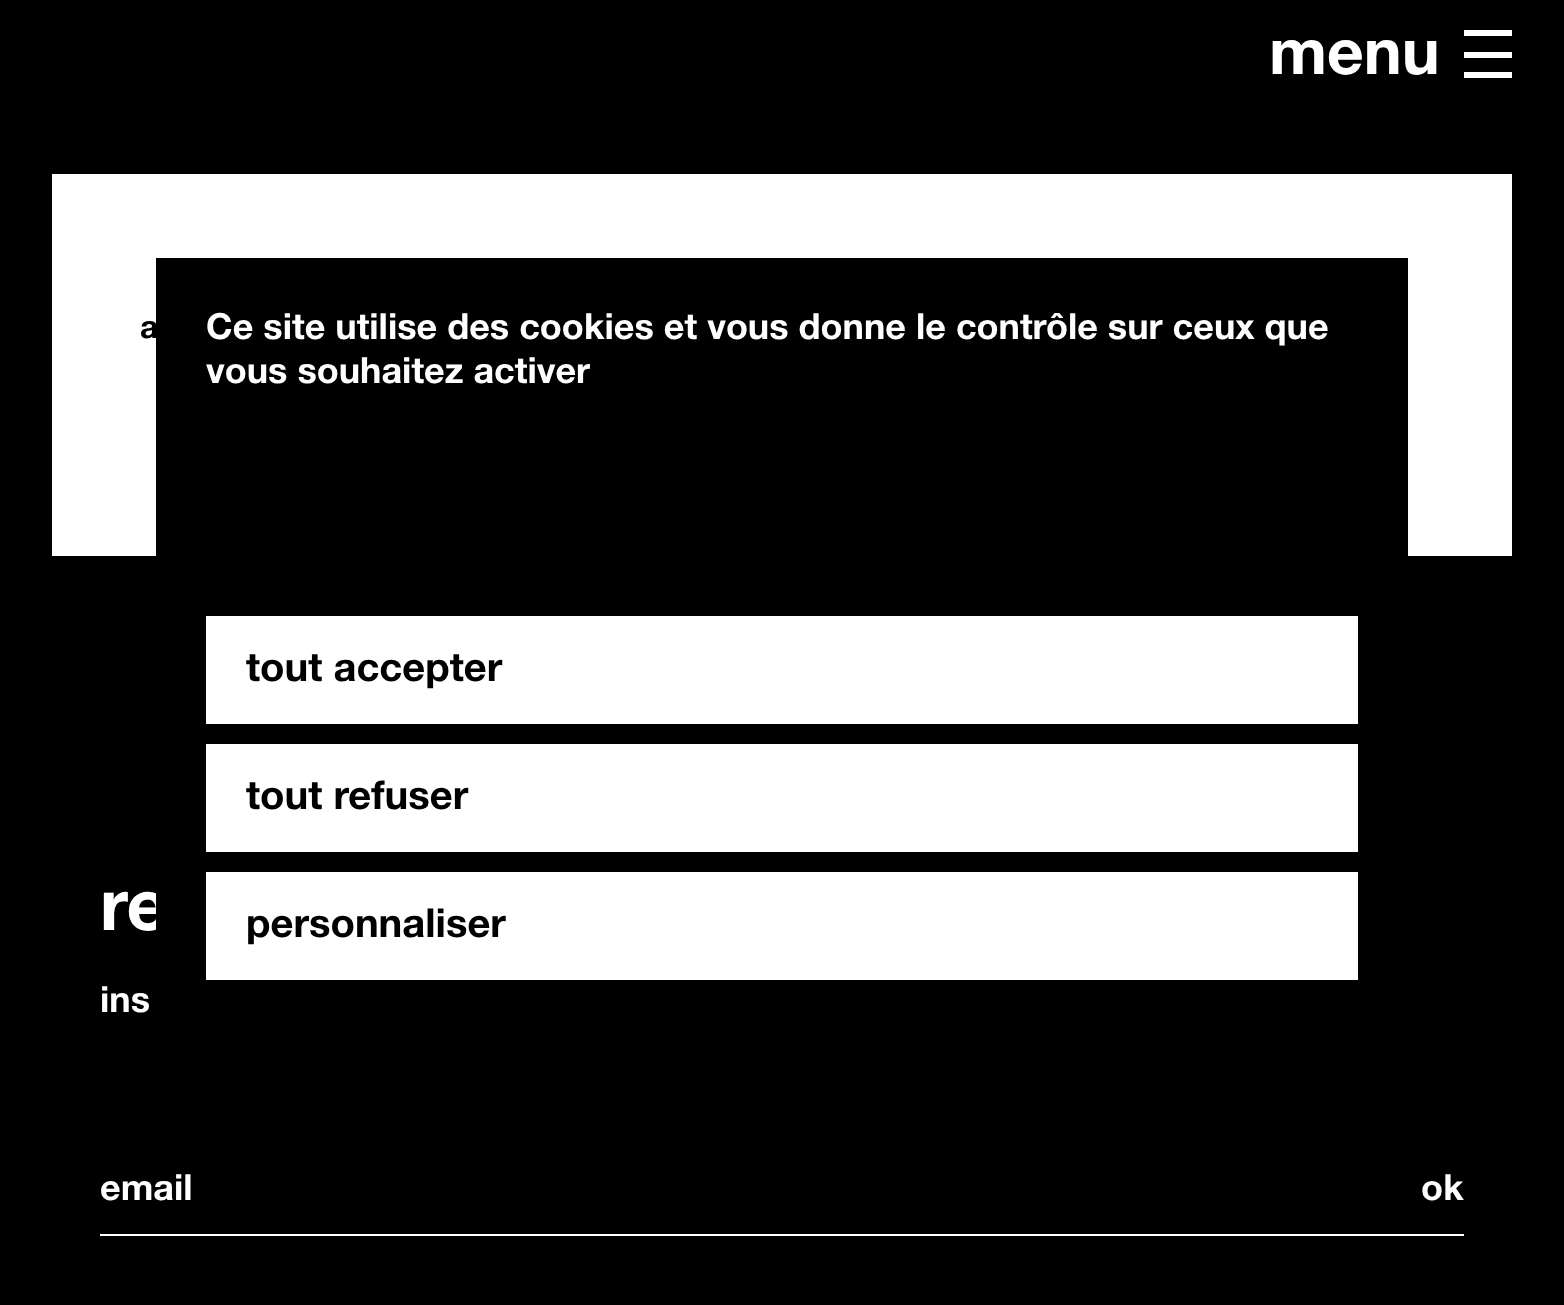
async function draw(canvas) {
	canvas.width = 1564;
	canvas.height = 1305;
	const c = canvas.getContext('2d');
	c.miterLimit = 4;
	c.fontKerning = 'normal';

	c.fillStyle = '#000';
	c.fillRect(0, 0, 1564, 1305);
	c.font = '64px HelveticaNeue';
	c.fillStyle = '#fff';
	c.fillText('menu', 1269, 74);
	for (const [x, y, w, h, color] of [
		[1464, 30, 48, 6, '#fff'],
		[1464, 52, 48, 6, '#fff'],
		[1464, 72, 48, 6, '#fff'],
		[52, 174, 1460, 382, '#fff'],
	]) {
		c.fillStyle = color;
		c.fillRect(x, y, w, h);
	}
	c.font = '32px HelveticaNeue';
	c.fillStyle = '#000';
	c.fillText('a', 140, 338);
	c.font = '72px HelveticaNeue';
	c.fillStyle = '#fff';
	c.fillText('re', 100, 930);
	c.fillStyle = '#000';
	c.fillRect(156, 258, 1252, 672);
	c.font = '36px HelveticaNeue';
	c.fillStyle = '#fff';
	c.fillText('Ce site utilise des cookies et vous donne le contrôle sur ceux que', 206, 339);
	c.fillText('vous souhaitez activer', 206, 383);
	c.fillRect(206, 616, 1152, 108);
	c.font = '40px HelveticaNeue';
	c.fillStyle = '#000';
	c.fillText('tout accepter', 246, 681);
	c.fillStyle = '#fff';
	c.fillRect(206, 744, 1152, 108);
	c.fillStyle = '#000';
	c.fillText('tout refuser', 246, 809);
	c.fillStyle = '#fff';
	c.fillRect(206, 872, 1152, 108);
	c.fillStyle = '#000';
	c.fillText('personnaliser', 246, 937);
	c.font = '36px HelveticaNeue';
	c.fillStyle = '#fff';
	c.fillText('ins', 100, 1012);
	c.fillRect(100, 1234, 1364, 2);
	c.fillText('email', 100, 1200);
	c.fillText('ok', 1421, 1200);
}

draw(document.querySelector('canvas'));
